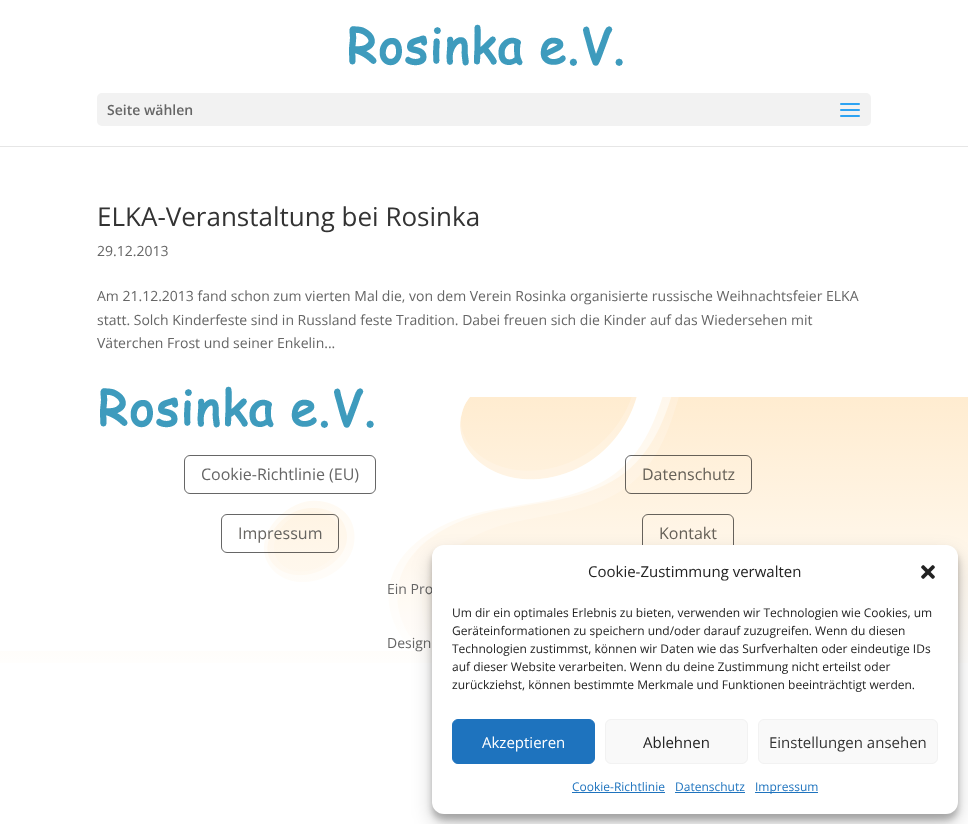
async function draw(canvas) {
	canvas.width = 968;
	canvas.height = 824;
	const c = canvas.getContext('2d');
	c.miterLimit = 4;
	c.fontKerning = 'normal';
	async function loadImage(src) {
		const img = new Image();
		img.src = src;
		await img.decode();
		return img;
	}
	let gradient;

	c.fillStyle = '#fff';
	c.fillRect(0, 0, 968, 824);
	c.fillStyle = '#e6e6e6';
	c.fillRect(0, 146, 968, 1);
	c.drawImage(await loadImage('img1.png'), 349, 24, 274, 42);
	c.fillStyle = '#f2f2f2';
	c.beginPath();
	c.roundRect(97, 93, 774, 33, 5);
	c.fill();
	c.font = '600 14px Open Sans';
	c.fillStyle = '#666';
	c.fillText('Seite wählen', 107, 115);
	c.drawImage(await loadImage('img2.png'), 840, 103, 20, 14);
	c.font = '26px Open Sans';
	c.fillStyle = '#333';
	c.fillText('ELKA-Veranstaltung bei Rosinka', 97, 226);
	c.font = '14px Open Sans';
	c.fillStyle = '#666';
	for (const [text, x, y] of [
		['29.12.2013', 97, 256],
		['Am 21.12.2013 fand schon zum vierten Mal die, von dem Verein Rosinka organisierte russische Weihnachtsfeier ELKA', 97, 301],
		['statt. Solch Kinderfeste sind in Russland feste Tradition. Dabei freuen sich die Kinder auf das Wiedersehen mit', 97, 325],
		['Väterchen Frost und seiner Enkelin...', 97, 348],
	]) {
		c.fillText(text, x, y);
	}
	gradient = c.createLinearGradient(484, 397, 484, 678);
	gradient.addColorStop(0, '#ffecd0');
	gradient.addColorStop(1, '#fff');
	c.fillStyle = gradient;
	c.fillRect(0, 397, 968, 266);
	c.drawImage(await loadImage('img3.png'), 0, 397, 679, 254);
	c.drawImage(await loadImage('img1.png'), 100, 386, 274, 42);
	c.beginPath();
	c.roundRect(184.5, 455.5, 191, 38, 5.5);
	c.strokeStyle = '#666';
	c.stroke();
	c.font = '16px Open Sans';
	c.fillStyle = '#666';
	c.fillText('Cookie-Richtlinie (EU)', 201, 480);
	c.beginPath();
	c.roundRect(625.5, 455.5, 126, 38, 5.5);
	c.strokeStyle = '#00000099';
	c.stroke();
	c.fillStyle = '#666158';
	c.fillText('Datenschutz', 642, 480);
	c.beginPath();
	c.roundRect(221.5, 514.5, 117, 38, 5.5);
	c.stroke();
	c.fillStyle = '#666460';
	c.fillText('Impressum', 238, 539);
	c.beginPath();
	c.roundRect(642.5, 514.5, 91, 38, 5.5);
	c.stroke();
	c.fillStyle = '#666158';
	c.fillText('Kontakt', 659, 539);
	c.font = '14px Open Sans';
	c.fillStyle = '#666';
	c.fillText('Ein Pro', 387, 594);
	c.fillText('Design', 387, 648);
	c.fillStyle = '#0000003b';
	c.filter = 'blur(3px)';
	c.beginPath();
	c.roundRect(432, 551, 526, 269, 12);
	c.fill();
	c.filter = 'none';
	c.fillStyle = '#00000030';
	c.filter = 'blur(10px)';
	c.beginPath();
	c.roundRect(432, 555, 526, 269, 12);
	c.fill();
	c.filter = 'none';
	c.fillStyle = '#fff';
	c.beginPath();
	c.roundRect(432, 545, 526, 269, 12);
	c.fill();
	c.font = '15px Open Sans';
	c.fillStyle = '#222';
	c.fillText('Cookie-Zustimmung verwalten', 588, 577);
	c.drawImage(await loadImage('img4.png'), 921, 565, 14, 14);
	c.font = '12px Open Sans';
	for (const [text, x, y] of [
		['Um dir ein optimales Erlebnis zu bieten, verwenden wir Technologien wie Cookies, um', 452, 617],
		['Geräteinformationen zu speichern und/oder darauf zuzugreifen. Wenn du diesen', 452, 635],
		['Technologien zustimmst, können wir Daten wie das Surfverhalten oder eindeutige IDs', 452, 653],
		['auf dieser Website verarbeiten. Wenn du deine Zustimmung nicht erteilst oder', 452, 671],
		['zurückziehst, können bestimmte Merkmale und Funktionen beeinträchtigt werden.', 452, 689],
	]) {
		c.fillText(text, x, y);
	}
	c.fillStyle = '#1e73be';
	c.beginPath();
	c.roundRect(452.5, 719.5, 142, 44, 5.5);
	c.fill();
	c.strokeStyle = '#1e73be';
	c.stroke();
	c.font = '15px Open Sans';
	c.fillStyle = '#fff';
	c.fillText('Akzeptieren', 482, 748);
	c.fillStyle = '#f9f9f9';
	c.beginPath();
	c.roundRect(605.5, 719.5, 142, 44, 5.5);
	c.fill();
	c.strokeStyle = '#f2f2f2';
	c.stroke();
	c.fillStyle = '#222';
	c.fillText('Ablehnen', 643, 748);
	c.fillStyle = '#f9f9f9';
	c.beginPath();
	c.roundRect(758.5, 719.5, 179, 44, 5.5);
	c.fill();
	c.stroke();
	c.fillStyle = '#333';
	c.fillText('Einstellungen ansehen', 769, 748);
	c.font = '12px Open Sans';
	c.fillStyle = '#1e73be';
	c.fillText('Cookie-Richtlinie', 572, 791);
	c.fillRect(572, 792, 93, 1);
	c.fillText('Datenschutz', 675, 791);
	c.fillRect(675, 792, 70, 1);
	c.fillRect(755, 792, 63, 1);
	c.fillText('Impressum', 755, 791);
}

draw(document.querySelector('canvas'));
